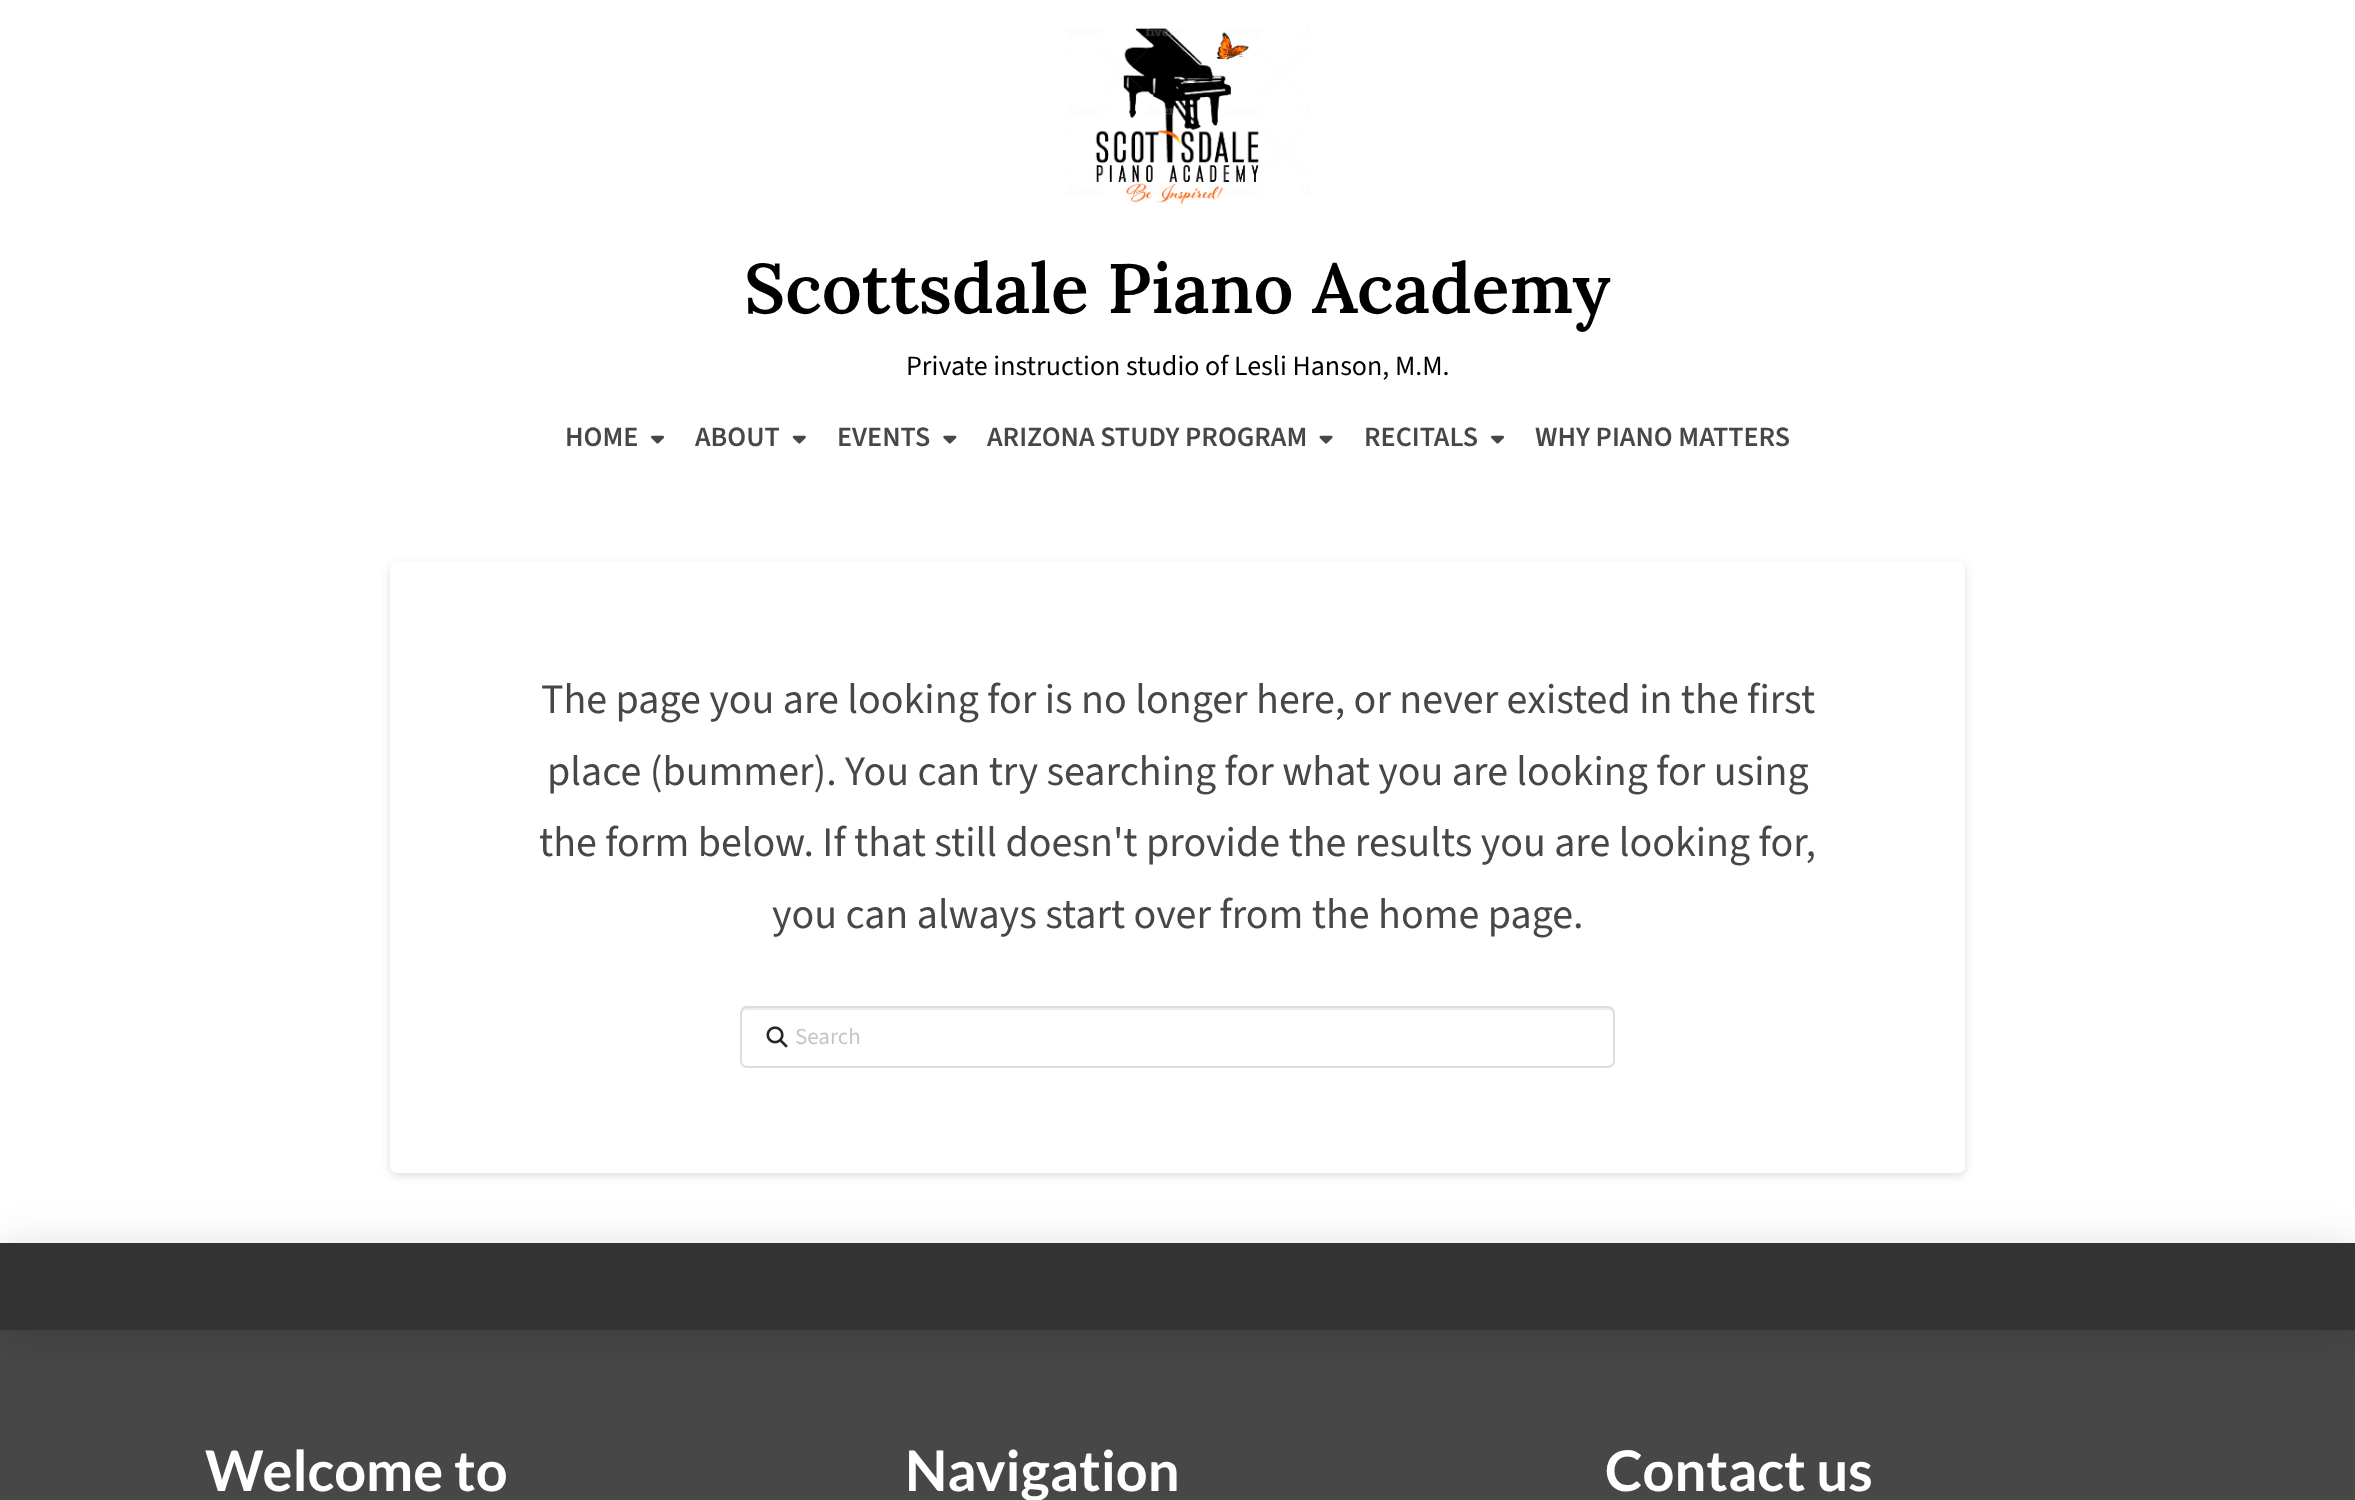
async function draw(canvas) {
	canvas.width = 2355;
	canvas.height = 1500;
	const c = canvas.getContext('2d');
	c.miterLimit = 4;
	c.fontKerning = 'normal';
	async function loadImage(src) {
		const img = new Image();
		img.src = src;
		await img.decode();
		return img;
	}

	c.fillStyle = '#fff';
	c.fillRect(0, 0, 2355, 1500);
	c.drawImage(await loadImage('img1.png'), 1067, 28, 242, 177);
	c.font = '600 70px Lora';
	c.fillStyle = '#000';
	c.fillText('Scottsdale Piano Academy', 744, 313);
	c.font = '28px "Source Sans 3"';
	c.fillText('Private instruction studio of Lesli Hanson, M.M.', 906, 375);
	c.font = '600 28px "Source Sans 3"';
	c.fillStyle = '#474747';
	c.fillText('HOME', 565, 446);
	c.drawImage(await loadImage('img2.png'), 651, 435, 14, 9);
	c.fillText('ABOUT', 695, 446);
	c.drawImage(await loadImage('img3.png'), 792, 435, 14, 9);
	c.fillText('EVENTS', 837, 446);
	c.drawImage(await loadImage('img4.png'), 943, 435, 14, 9);
	c.fillText('ARIZONA STUDY PROGRAM', 987, 446);
	c.drawImage(await loadImage('img5.png'), 1319, 435, 14, 9);
	c.fillText('RECITALS', 1364, 446);
	c.drawImage(await loadImage('img2.png'), 1491, 435, 14, 9);
	c.fillText('WHY PIANO MATTERS', 1535, 446);
	c.fillStyle = '#00000021';
	c.filter = 'blur(5px)';
	c.beginPath();
	c.roundRect(390, 565, 1575, 611, 7);
	c.fill();
	c.filter = 'none';
	c.fillStyle = '#fff';
	c.beginPath();
	c.roundRect(390, 562, 1575, 611, 7);
	c.fill();
	c.font = '42px "Source Sans 3"';
	c.fillStyle = '#474747';
	for (const [text, x, y] of [
		['The page you are looking for is no longer here, or never existed in the first', 541, 713],
		['place (bummer). You can try searching for what you are looking for using', 547, 785],
		['the form below. If that still doesn\'t provide the results you are looking for,', 539, 856],
		['you can always start over from the home page.', 772, 928],
	]) {
		c.fillText(text, x, y);
	}
	c.fillStyle = '#ececec';
	c.beginPath();
	c.moveTo(747, 1010);
	c.lineTo(1608, 1010);
	c.bezierCurveTo(1611, 1010, 1614, 1012, 1614, 1015);
	c.lineTo(1614, 1013);
	c.bezierCurveTo(1614, 1010, 1612, 1008, 1609, 1008);
	c.lineTo(747, 1008);
	c.bezierCurveTo(744, 1008, 742, 1010, 742, 1013);
	c.lineTo(742, 1015);
	c.bezierCurveTo(742, 1012, 744, 1010, 747, 1010);
	c.closePath();
	c.fill();
	c.beginPath();
	c.roundRect(741, 1007, 873, 60, 6);
	c.strokeStyle = '#ddd';
	c.lineWidth = 2;
	c.stroke();
	c.drawImage(await loadImage('img6.png'), 766, 1026, 22, 22);
	c.font = '23px "Source Sans 3"';
	c.fillStyle = '#c5c5c5';
	c.fillText('Search', 795, 1044);
	c.fillStyle = '#474747';
	c.fillRect(0, 1330, 2355, 170);
	c.fillStyle = '#00000026';
	c.filter = 'blur(22px)';
	c.beginPath();
	c.rect(0, 1248, 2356, 87);
	c.fill();
	c.filter = 'none';
	c.fillStyle = '#333';
	c.fillRect(0, 1243, 2355, 87);
	c.font = 'bold 56px Lato';
	c.fillStyle = '#fff';
	for (const [text, x, y] of [
		['Welcome to', 205, 1491],
		['Navigation', 905, 1491],
		['Contact us', 1605, 1491],
	]) {
		c.fillText(text, x, y);
	}
}

draw(document.querySelector('canvas'));
